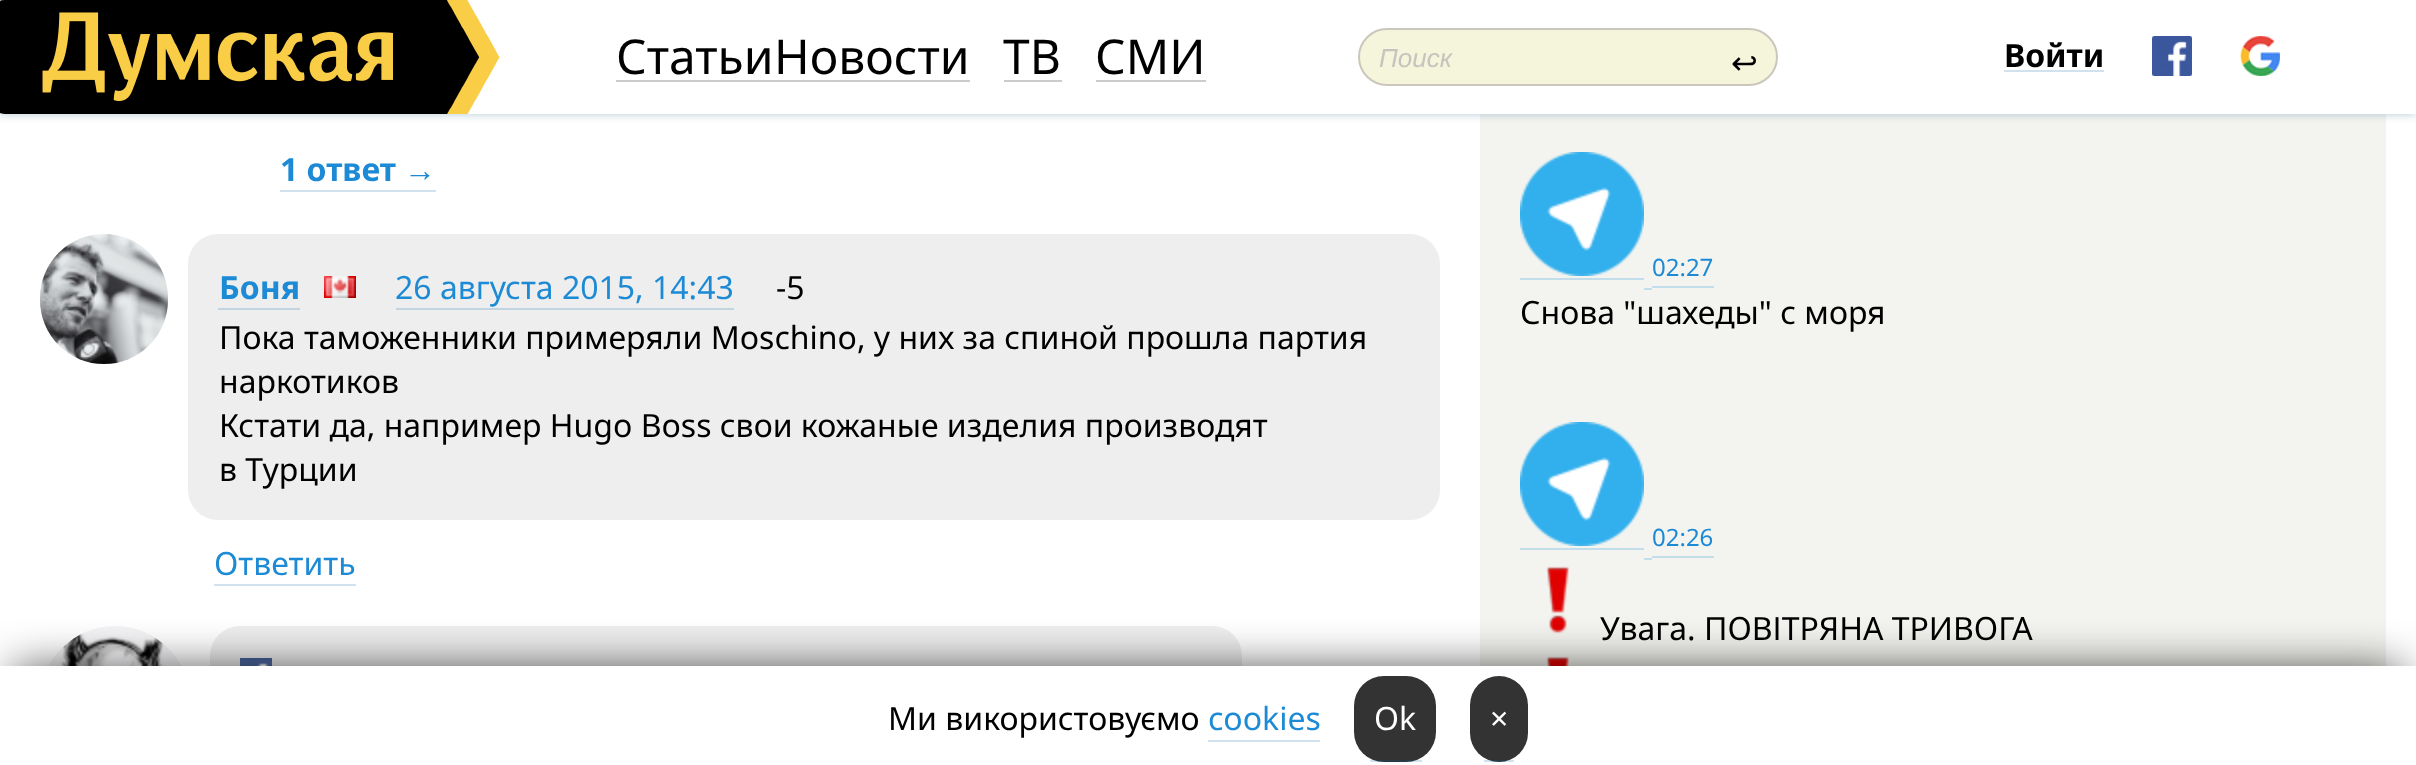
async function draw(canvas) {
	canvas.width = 2416;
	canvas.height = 765;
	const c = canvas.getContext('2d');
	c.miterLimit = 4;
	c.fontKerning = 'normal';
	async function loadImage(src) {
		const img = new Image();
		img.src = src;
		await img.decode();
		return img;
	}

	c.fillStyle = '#fff';
	c.fillRect(0, 0, 2416, 765);
	c.fillStyle = '#f3f4ef';
	c.fillRect(1480, 114, 906, 552);
	c.fillStyle = '#004f7a4d';
	c.filter = 'blur(5px)';
	c.beginPath();
	c.rect(0, 0, 2416, 114);
	c.fill();
	c.filter = 'none';
	c.fillStyle = '#fff';
	c.fillRect(0, 0, 2416, 114);
	c.drawImage(await loadImage('img1.png'), 0, 0, 500, 114);
	c.fillStyle = '#ccc';
	c.fillRect(616, 80, 354, 2);
	c.font = '48px Noto Sans';
	c.fillStyle = '#000';
	c.fillText('Статьи', 616, 74);
	c.fillText('Новости', 774, 74);
	c.fillStyle = '#ccc';
	c.fillRect(1004, 80, 58, 2);
	c.fillStyle = '#000';
	c.fillText('ТВ', 1003, 74);
	c.fillStyle = '#ccc';
	c.fillRect(1096, 80, 110, 2);
	c.fillStyle = '#000';
	c.fillText('СМИ', 1095, 74);
	c.fillStyle = '#f5f5dc';
	c.beginPath();
	c.roundRect(1359, 29, 418, 56, 28);
	c.fill();
	c.strokeStyle = '#ccc7bd';
	c.lineWidth = 2;
	c.stroke();
	c.font = 'italic 26px Liberation Sans';
	c.fillStyle = '#c6c4be';
	c.fillText('Поиск', 1379, 67);
	c.font = '32px DejaVu Sans';
	c.fillStyle = '#000';
	c.fillText('↩', 1731, 74);
	c.fillStyle = '#d1e2ee';
	c.fillRect(2004, 70, 100, 2);
	c.font = 'bold 32px Noto Sans';
	c.fillStyle = '#000';
	c.fillText('Войти', 2004, 67);
	c.drawImage(await loadImage('img2.png'), 2152, 36, 40, 40);
	c.drawImage(await loadImage('img3.png'), 2240, 36, 40, 40);
	c.fillStyle = '#1c8ad4';
	c.fillText('1 ответ', 280, 181);
	c.font = 'bold 32px Liberation Serif';
	c.fillText('→', 404, 181);
	c.fillStyle = '#d1e2ee';
	c.fillRect(280, 190, 156, 2);
	c.drawImage(await loadImage('img4.png'), 40, 234, 128, 130);
	c.fillStyle = '#eee';
	c.beginPath();
	c.roundRect(188, 234, 1252, 286, 30);
	c.fill();
	c.font = 'bold 32px Noto Sans';
	c.fillStyle = '#1c8ad4';
	c.fillText('Боня', 219, 299);
	c.fillStyle = '#c3d4e1';
	c.fillRect(218, 308, 82, 2);
	c.drawImage(await loadImage('img5.png'), 324, 276, 32, 22);
	c.font = '32px Noto Sans';
	c.fillStyle = '#1c8ad4';
	c.fillText('26 августа 2015, 14:43', 395, 299);
	c.fillStyle = '#c3d4e1';
	c.fillRect(396, 308, 338, 2);
	c.fillStyle = '#000';
	for (const [text, x, y] of [
		['-5', 776, 299],
		['Пока таможенники примеряли Moschino, у них за спиной прошла партия', 219, 349],
		['наркотиков', 219, 393],
		['Кстати да, например Hugo Boss свои кожаные изделия производят', 219, 437],
		['в Турции', 219, 481],
	]) {
		c.fillText(text, x, y);
	}
	c.fillStyle = '#d1e2ee';
	c.fillRect(214, 584, 142, 2);
	c.fillStyle = '#1c8ad4';
	c.fillText('Ответить', 214, 575);
	c.drawImage(await loadImage('img6.png'), 48, 626, 134, 40);
	c.fillStyle = '#eee';
	c.beginPath();
	c.roundRect(210, 626, 1032, 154, 30);
	c.fill();
	c.drawImage(await loadImage('img7.png'), 240, 658, 32, 8);
	c.drawImage(await loadImage('img8.png'), 1520, 152, 124, 124);
	c.font = '24px Noto Sans';
	c.fillStyle = '#1c8ad4';
	c.fillText('02:27', 1652, 276);
	for (const [x, y, w, h, color] of [
		[1520, 278, 124, 2, '#c2deea'],
		[1644, 288, 8, 2, '#c2deea'],
		[1652, 286, 62, 2, '#c2deea'],
	]) {
		c.fillStyle = color;
		c.fillRect(x, y, w, h);
	}
	c.font = '32px Noto Sans';
	c.fillStyle = '#000';
	c.fillText('Снова "шахеды" с моря', 1520, 324);
	c.drawImage(await loadImage('img8.png'), 1520, 422, 124, 124);
	c.font = '24px Noto Sans';
	c.fillStyle = '#1c8ad4';
	c.fillText('02:26', 1652, 546);
	for (const [x, y, w, h, color] of [
		[1520, 548, 124, 2, '#c2deea'],
		[1644, 558, 8, 2, '#c2deea'],
		[1652, 556, 62, 2, '#c2deea'],
	]) {
		c.fillStyle = color;
		c.fillRect(x, y, w, h);
	}
	c.drawImage(await loadImage('img9.png'), 1546, 566, 24, 68);
	c.font = '32px Noto Sans';
	c.fillStyle = '#000';
	c.fillText('Увага. ПОВІТРЯНА ТРИВОГА', 1600, 640);
	c.drawImage(await loadImage('img10.png'), 1546, 656, 24, 10);
	c.fillStyle = '#000000bf';
	c.filter = 'blur(23px)';
	c.beginPath();
	c.rect(14, 670, 2388, 72);
	c.fill();
	c.filter = 'none';
	c.fillStyle = '#fff';
	c.fillRect(0, 666, 2416, 99);
	c.fillStyle = '#000';
	c.fillText('Ми використовуємо', 888, 730);
	c.fillStyle = '#1c8ad4';
	c.fillText('cookies', 1208, 730);
	c.fillStyle = '#d1e2ee';
	c.fillRect(1208, 740, 112, 2);
	c.fillStyle = '#333';
	c.beginPath();
	c.roundRect(1354, 676, 82, 86, 30);
	c.fill();
	c.fillStyle = '#fff';
	c.fillText('Ok', 1374, 730);
	c.fillStyle = '#005ca32e';
	c.fillRect(1370, 760, 52, 2);
	c.fillStyle = '#333';
	c.beginPath();
	c.roundRect(1470, 676, 58, 86, 29);
	c.fill();
	c.fillStyle = '#fff';
	c.fillText('×', 1490, 730);
	c.fillStyle = '#005ca32e';
	c.fillRect(1484, 760, 30, 2);
}

draw(document.querySelector('canvas'));
